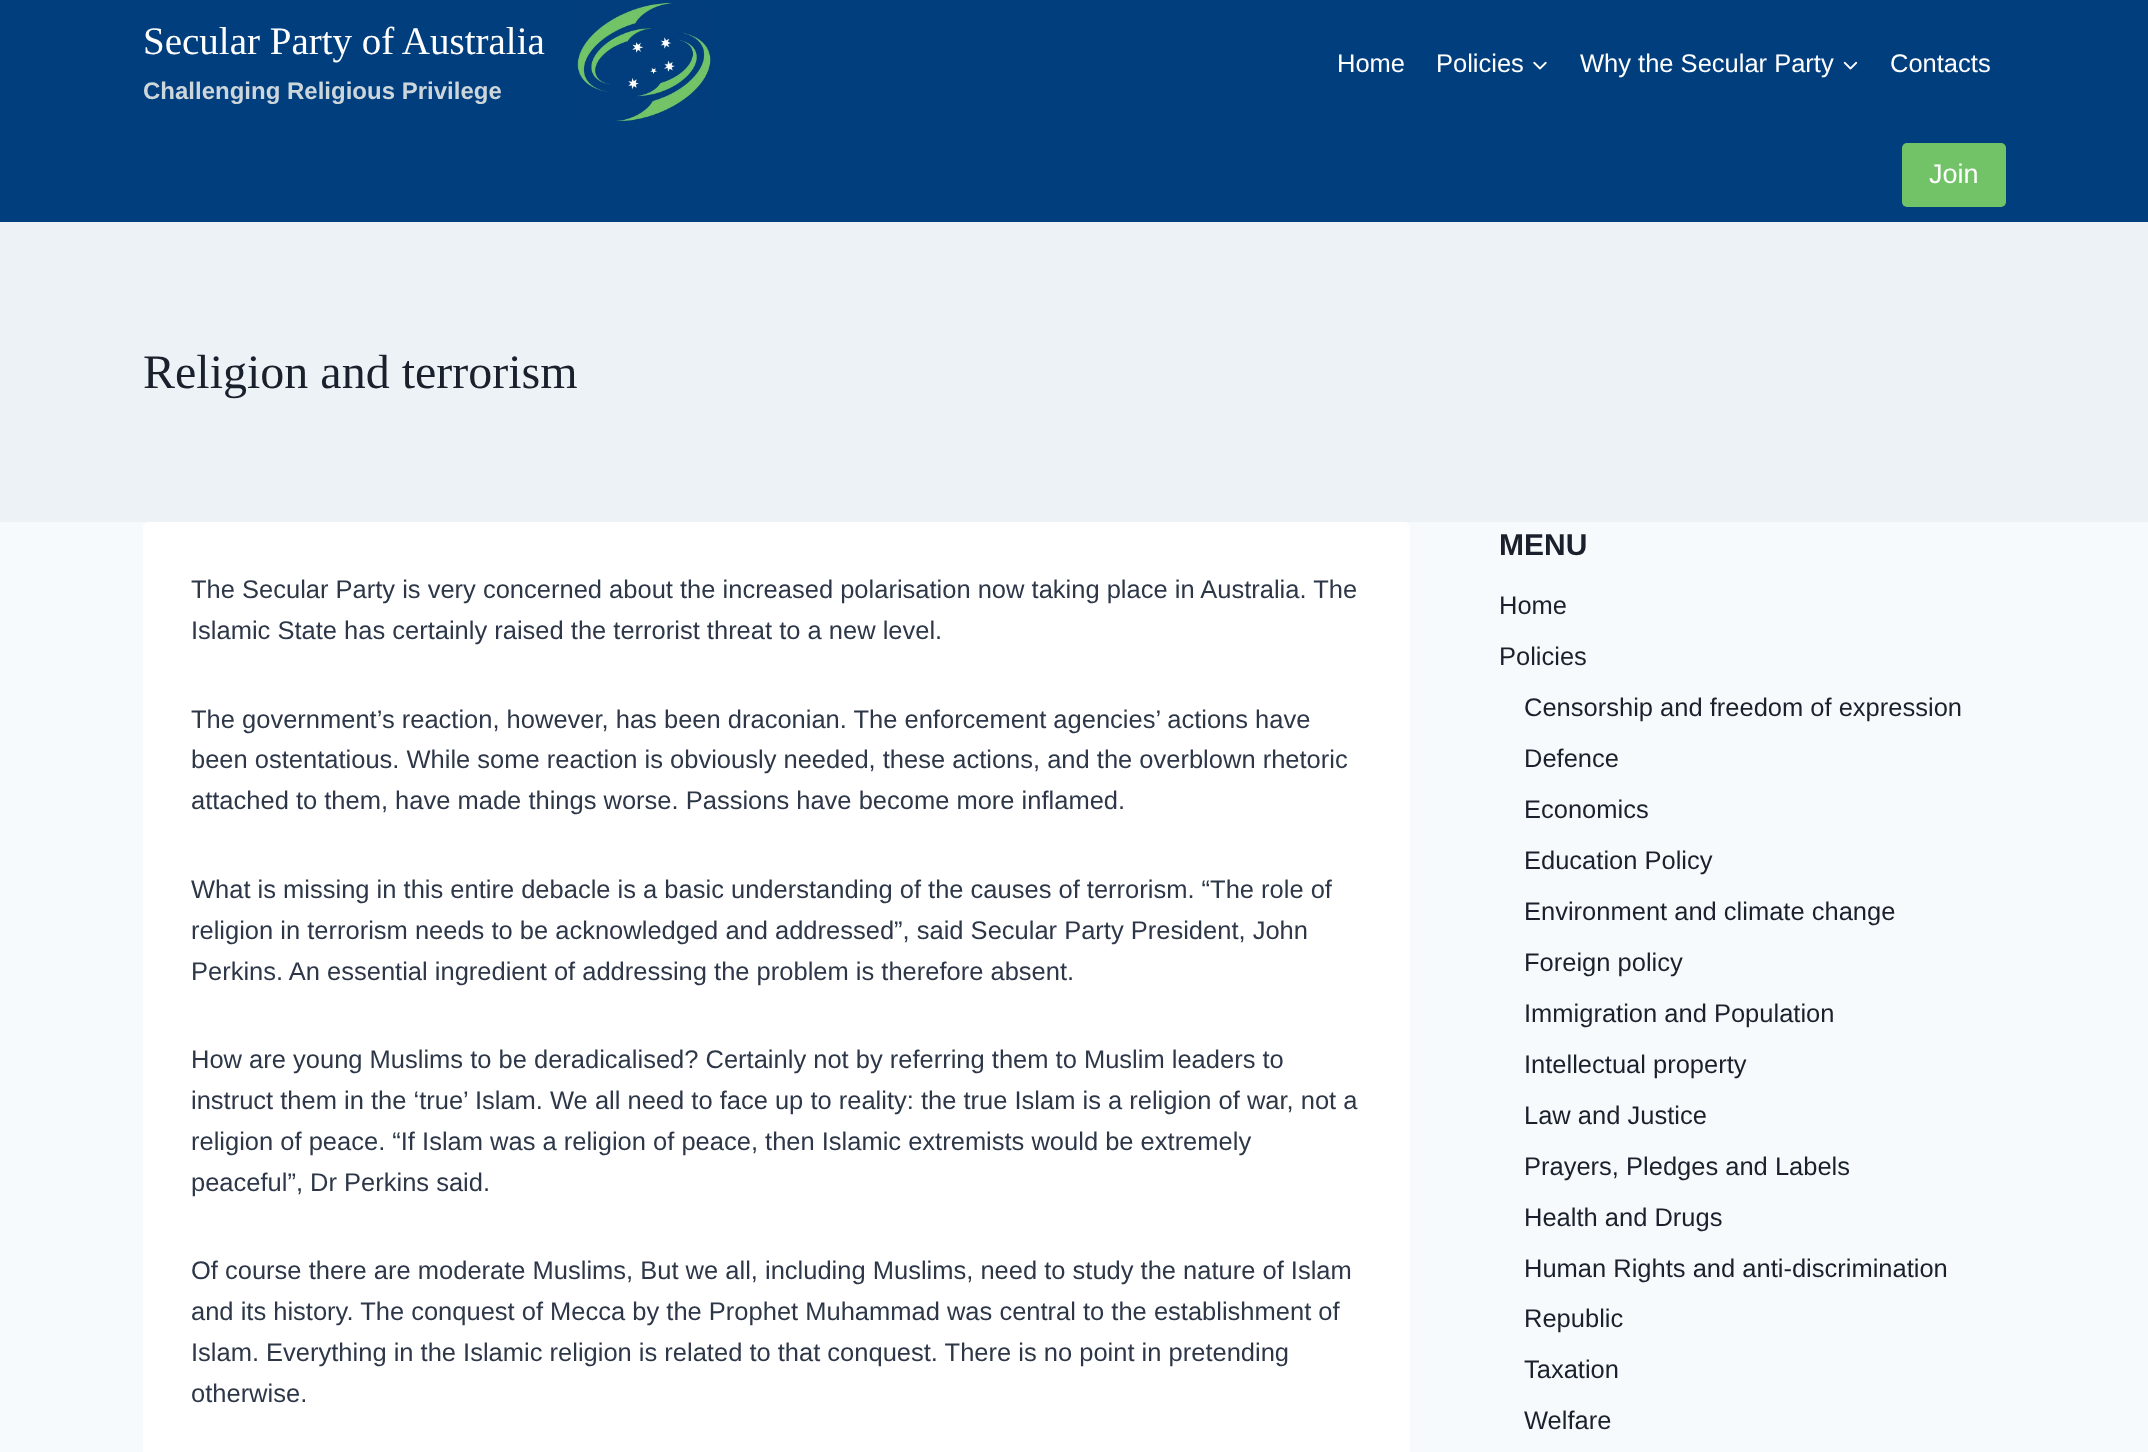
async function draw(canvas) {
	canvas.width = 2148;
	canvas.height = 1452;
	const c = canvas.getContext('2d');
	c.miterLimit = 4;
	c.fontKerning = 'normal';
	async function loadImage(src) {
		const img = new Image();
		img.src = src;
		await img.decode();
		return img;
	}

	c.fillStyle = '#f7fafc';
	c.fillRect(0, 0, 2148, 1452);
	c.fillStyle = '#013e7d';
	c.fillRect(0, 0, 2148, 222);
	c.font = '39px Liberation Serif';
	c.fillStyle = '#fff';
	c.fillText('Secular Party of Australia', 143, 54);
	c.font = 'bold 24px Liberation Sans';
	c.fillStyle = '#cdd6db';
	c.fillText('Challenging Religious Privilege', 143, 99);
	c.drawImage(await loadImage('img1.png'), 577, 2, 134, 120);
	c.font = '25.5px Liberation Sans';
	c.fillStyle = '#fff';
	c.fillText('Home', 1337, 72);
	c.fillText('Policies', 1436, 72);
	c.drawImage(await loadImage('img2.png'), 1533, 61, 14, 9);
	c.fillText('Why the Secular Party', 1580, 72);
	c.drawImage(await loadImage('img3.png'), 1843, 61, 15, 9);
	c.fillText('Contacts', 1890, 72);
	c.fillStyle = '#72c367';
	c.beginPath();
	c.roundRect(1902, 143, 104, 64, 5);
	c.fill();
	c.font = '27px Liberation Sans';
	c.fillStyle = '#fff';
	c.fillText('Join', 1929, 183);
	c.fillStyle = '#edf2f7';
	c.fillRect(0, 222, 2148, 300);
	c.font = '48px Liberation Serif';
	c.fillStyle = '#1a202c';
	c.fillText('Religion and terrorism', 143, 388);
	c.fillStyle = '#fff';
	c.beginPath();
	c.roundRect(143, 522, 1267, 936, 6);
	c.fill();
	c.font = '25.5px Liberation Sans';
	c.fillStyle = '#2d3748';
	for (const [text, x, y] of [
		['The Secular Party is very concerned about the increased polarisation now taking place in Australia. The', 191, 598],
		['Islamic State has certainly raised the terrorist threat to a new level.', 191, 639],
		['The government’s reaction, however, has been draconian. The enforcement agencies’ actions have', 191, 728],
		['been ostentatious. While some reaction is obviously needed, these actions, and the overblown rhetoric', 191, 768],
		['attached to them, have made things worse. Passions have become more inflamed.', 191, 809],
		['What is missing in this entire debacle is a basic understanding of the causes of terrorism. “The role of', 191, 898],
		['religion in terrorism needs to be acknowledged and addressed”, said Secular Party President, John', 191, 939],
		['Perkins. An essential ingredient of addressing the problem is therefore absent.', 191, 980],
		['How are young Muslims to be deradicalised? Certainly not by referring them to Muslim leaders to', 191, 1068],
		['instruct them in the ‘true’ Islam. We all need to face up to reality: the true Islam is a religion of war, not a', 191, 1109],
		['religion of peace. “If Islam was a religion of peace, then Islamic extremists would be extremely', 191, 1150],
		['peaceful”, Dr Perkins said.', 191, 1191],
		['Of course there are moderate Muslims, But we all, including Muslims, need to study the nature of Islam', 191, 1279],
		['and its history. The conquest of Mecca by the Prophet Muhammad was central to the establishment of', 191, 1320],
		['Islam. Everything in the Islamic religion is related to that conquest. There is no point in pretending', 191, 1361],
		['otherwise.', 191, 1402],
	]) {
		c.fillText(text, x, y);
	}
	c.font = 'bold 30px Liberation Sans';
	c.fillStyle = '#1a202c';
	c.fillText('MENU', 1499, 555);
	c.font = '25.5px Liberation Sans';
	for (const [text, x, y] of [
		['Home', 1499, 614],
		['Policies', 1499, 665],
		['Censorship and freedom of expression', 1524, 716],
		['Defence', 1524, 767],
		['Economics', 1524, 818],
		['Education Policy', 1524, 869],
		['Environment and climate change', 1524, 920],
		['Foreign policy', 1524, 971],
		['Immigration and Population', 1524, 1022],
		['Intellectual property', 1524, 1073],
		['Law and Justice', 1524, 1124],
		['Prayers, Pledges and Labels', 1524, 1175],
		['Health and Drugs', 1524, 1226],
		['Human Rights and anti-discrimination', 1524, 1277],
		['Republic', 1524, 1327],
		['Taxation', 1524, 1378],
		['Welfare', 1524, 1429],
	]) {
		c.fillText(text, x, y);
	}
}

draw(document.querySelector('canvas'));
